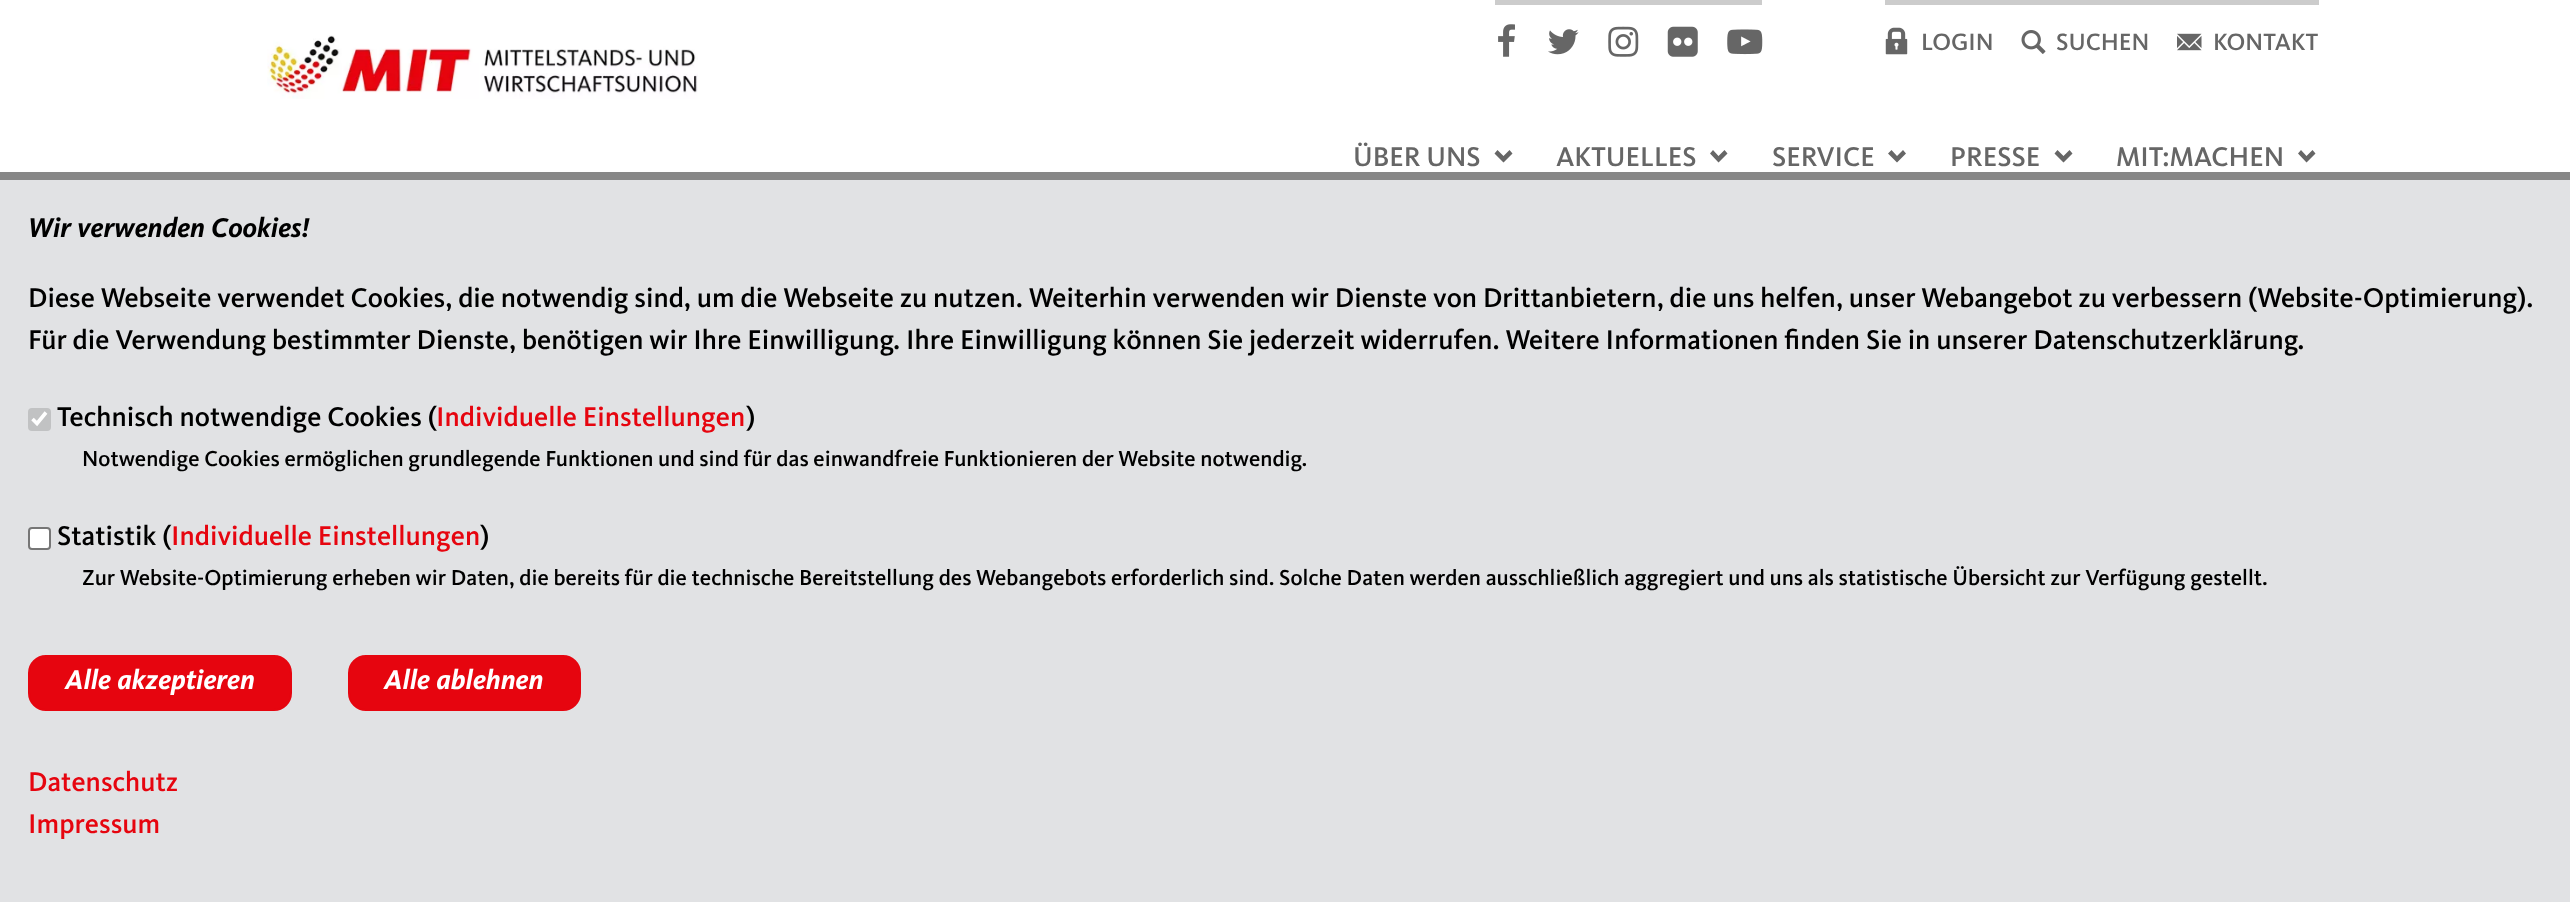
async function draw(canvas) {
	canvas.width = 2570;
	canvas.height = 902;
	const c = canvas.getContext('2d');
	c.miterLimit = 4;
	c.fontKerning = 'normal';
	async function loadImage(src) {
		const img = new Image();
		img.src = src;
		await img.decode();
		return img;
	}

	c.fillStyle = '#fff';
	c.fillRect(0, 0, 2570, 902);
	c.drawImage(await loadImage('img1.png'), 267, 35, 431, 64);
	c.fillStyle = '#ccc';
	c.fillRect(1495, 0, 267, 5);
	c.drawImage(await loadImage('img2.png'), 1498, 24, 17, 33);
	c.drawImage(await loadImage('img3.png'), 1548, 29, 31, 26);
	c.drawImage(await loadImage('img4.png'), 1608, 26, 31, 31);
	c.drawImage(await loadImage('img5.png'), 1667, 26, 31, 31);
	c.drawImage(await loadImage('img6.png'), 1727, 29, 36, 26);
	c.fillRect(1885, 0, 434, 5);
	c.drawImage(await loadImage('img7.png'), 1885, 27, 23, 28);
	c.font = '500 24.5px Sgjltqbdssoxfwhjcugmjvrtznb';
	c.fillStyle = '#666';
	c.fillText('LOGIN', 1921, 50);
	c.drawImage(await loadImage('img8.png'), 2021, 30, 25, 24);
	c.fillText('SUCHEN', 2056, 50);
	c.drawImage(await loadImage('img9.png'), 2177, 33, 25, 18);
	c.fillText('KONTAKT', 2213, 50);
	c.font = '500 28px Sgjltqbdssoxfwhjcugmjvrtznb';
	c.fillText('ÜBER UNS', 1353, 166);
	c.beginPath();
	c.moveTo(1512.5, 153.5);
	c.lineTo(1503.5, 162.5);
	c.lineTo(1494.5, 153.5);
	c.lineTo(1497.5, 150);
	c.lineTo(1503.5, 156);
	c.lineTo(1509.5, 150);
	c.closePath();
	c.fill();
	c.fillText('AKTUELLES', 1556, 166);
	c.beginPath();
	c.moveTo(1727.5, 153.5);
	c.lineTo(1718.5, 162.5);
	c.lineTo(1710, 153.5);
	c.lineTo(1713, 150);
	c.lineTo(1718.5, 156);
	c.lineTo(1724.5, 150);
	c.closePath();
	c.fill();
	c.fillText('SERVICE', 1772, 166);
	c.beginPath();
	c.moveTo(1906, 153.5);
	c.lineTo(1897, 162.5);
	c.lineTo(1888, 153.5);
	c.lineTo(1891.5, 150);
	c.lineTo(1897, 156);
	c.lineTo(1903, 150);
	c.closePath();
	c.fill();
	c.fillText('PRESSE', 1950, 166);
	c.beginPath();
	c.moveTo(2072.5, 153.5);
	c.lineTo(2063.5, 162.5);
	c.lineTo(2054.5, 153.5);
	c.lineTo(2057.5, 150);
	c.lineTo(2063.5, 156);
	c.lineTo(2069.5, 150);
	c.closePath();
	c.fill();
	c.fillText('MIT:MACHEN', 2116, 166);
	c.beginPath();
	c.moveTo(2315.5, 153.5);
	c.lineTo(2306.5, 162.5);
	c.lineTo(2298, 153.5);
	c.lineTo(2301, 150);
	c.lineTo(2306.5, 156);
	c.lineTo(2312.5, 150);
	c.closePath();
	c.fill();
	c.fillStyle = '#e1e2e4';
	c.fillRect(0, 180, 2570, 722);
	c.fillStyle = '#878787';
	c.fillRect(0, 172, 2570, 8);
	c.font = 'bold 28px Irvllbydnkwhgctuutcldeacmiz';
	c.fillStyle = '#000';
	c.fillText('Wir verwenden Cookies!', 28, 237);
	c.font = '500 28px Sgjltqbdssoxfwhjcugmjvrtznb';
	c.fillText('Diese Webseite verwendet Cookies, die notwendig sind, um die Webseite zu nutzen. Weiterhin verwenden wir Dienste von Drittanbietern, die uns helfen, unser Webangebot zu verbessern (Website-Optimierung).', 28, 307);
	c.fillText('Für die Verwendung bestimmter Dienste, benötigen wir Ihre Einwilligung. Ihre Einwilligung können Sie jederzeit widerrufen. Weitere Informationen finden Sie in unserer Datenschutzerklärung.', 28, 349);
	c.fillStyle = '#c1c2c3';
	c.beginPath();
	c.roundRect(28, 408, 23, 23, 4);
	c.fill();
	c.beginPath();
	c.moveTo(32.5, 419);
	c.lineTo(37, 423.5);
	c.lineTo(46, 412.5);
	c.strokeStyle = '#fff';
	c.lineWidth = 3.6;
	c.stroke();
	c.fillStyle = '#000';
	c.fillText('Technisch notwendige Cookies (', 57, 426);
	c.fillStyle = '#e6050f';
	c.fillText('Individuelle Einstellungen', 436, 426);
	c.fillStyle = '#000';
	c.fillText(')', 746, 426);
	c.font = '500 22.4px Sgjltqbdssoxfwhjcugmjvrtznb';
	c.fillText('Notwendige Cookies ermöglichen grundlegende Funktionen und sind für das einwandfreie Funktionieren der Website notwendig.', 82, 466);
	c.fillStyle = '#fff';
	c.beginPath();
	c.roundRect(29, 528, 21, 21, 3);
	c.fill();
	c.strokeStyle = '#767676';
	c.lineWidth = 2;
	c.stroke();
	c.font = '500 28px Sgjltqbdssoxfwhjcugmjvrtznb';
	c.fillStyle = '#000';
	c.fillText('Statistik (', 57, 545);
	c.fillStyle = '#e6050f';
	c.fillText('Individuelle Einstellungen', 171, 545);
	c.fillStyle = '#000';
	c.fillText(')', 480, 545);
	c.font = '500 22.4px Sgjltqbdssoxfwhjcugmjvrtznb';
	c.fillText('Zur Website-Optimierung erheben wir Daten, die bereits für die technische Bereitstellung des Webangebots erforderlich sind. Solche Daten werden ausschließlich aggregiert und uns als statistische Übersicht zur Verfügung gestellt.', 82, 585);
	c.fillStyle = '#e6050f';
	c.beginPath();
	c.roundRect(29, 656, 262, 54, 17);
	c.fill();
	c.strokeStyle = '#e6050f';
	c.stroke();
	c.font = 'bold 28px Irvllbydnkwhgctuutcldeacmiz';
	c.fillStyle = '#fff';
	c.fillText('Alle akzeptieren', 65, 689);
	c.fillStyle = '#e6050f';
	c.beginPath();
	c.roundRect(349, 656, 231, 54, 17);
	c.fill();
	c.stroke();
	c.fillStyle = '#fff';
	c.fillText('Alle ablehnen', 384, 689);
	c.font = '500 28px Sgjltqbdssoxfwhjcugmjvrtznb';
	c.fillStyle = '#e6050f';
	c.fillText('Datenschutz', 28, 791);
	c.fillText('Impressum', 28, 833);
}

draw(document.querySelector('canvas'));
